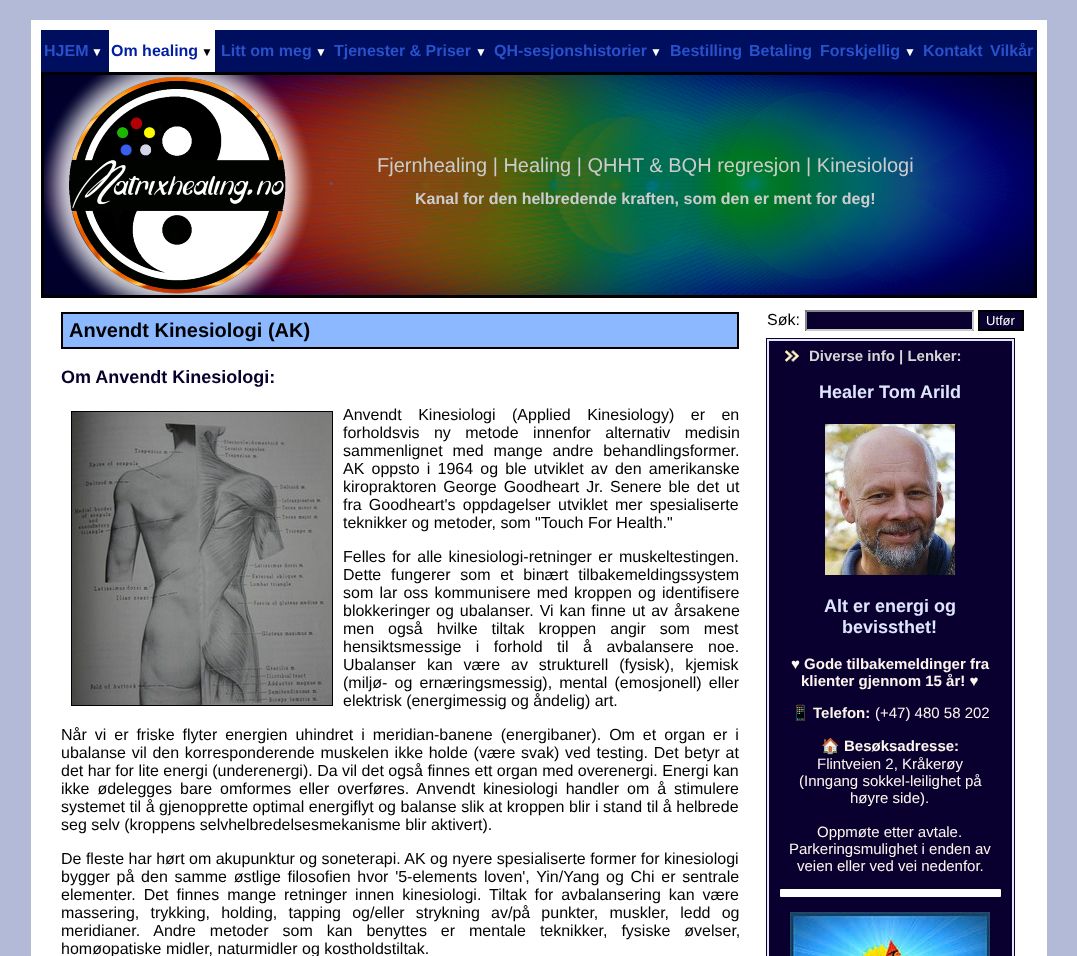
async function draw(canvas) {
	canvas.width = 1077;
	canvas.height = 956;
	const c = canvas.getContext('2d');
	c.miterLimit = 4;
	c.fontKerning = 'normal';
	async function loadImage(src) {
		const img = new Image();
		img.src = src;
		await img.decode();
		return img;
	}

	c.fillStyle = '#b3bad8';
	c.fillRect(0, 0, 1077, 956);
	for (const [x, y, w, h, color] of [
		[31, 20, 40, 936, '#fff'],
		[71, 20, 936, 10, '#fff'],
		[1007, 20, 40, 936, '#fff'],
		[41, 30, 996, 42, '#000e60'],
	]) {
		c.fillStyle = color;
		c.fillRect(x, y, w, h);
	}
	c.font = 'bold 16px Liberation Sans';
	c.fillStyle = '#2851ca';
	c.fillText('HJEM', 44, 56);
	c.font = 'bold 12px Liberation Sans';
	c.fillStyle = '#fff';
	c.fillText('▼', 91, 56);
	c.fillRect(109, 30, 106, 42);
	c.font = 'bold 16px Liberation Sans';
	c.fillStyle = '#001ea3';
	c.fillText('Om healing', 111, 56);
	c.font = 'bold 12px Liberation Sans';
	c.fillStyle = '#000';
	c.fillText('▼', 201, 56);
	c.font = 'bold 16px Liberation Sans';
	c.fillStyle = '#2851ca';
	c.fillText('Litt om meg', 221, 56);
	c.font = 'bold 12px Liberation Sans';
	c.fillStyle = '#fff';
	c.fillText('▼', 315, 56);
	c.font = 'bold 16px Liberation Sans';
	c.fillStyle = '#2851ca';
	c.fillText('Tjenester & Priser', 334, 56);
	c.font = 'bold 12px Liberation Sans';
	c.fillStyle = '#fff';
	c.fillText('▼', 475, 56);
	c.font = 'bold 16px Liberation Sans';
	c.fillStyle = '#2851ca';
	c.fillText('QH-sesjonshistorier', 494, 56);
	c.font = 'bold 12px Liberation Sans';
	c.fillStyle = '#fff';
	c.fillText('▼', 650, 56);
	c.font = 'bold 16px Liberation Sans';
	c.fillStyle = '#2851ca';
	for (const [text, x, y] of [
		['Bestilling', 670, 56],
		['Betaling', 749, 56],
		['Forskjellig', 820, 56],
	]) {
		c.fillText(text, x, y);
	}
	c.font = 'bold 12px Liberation Sans';
	c.fillStyle = '#fff';
	c.fillText('▼', 904, 56);
	c.font = 'bold 16px Liberation Sans';
	c.fillStyle = '#2851ca';
	c.fillText('Kontakt', 923, 56);
	c.fillText('Vilkår', 990, 56);
	c.drawImage(await loadImage('img1.png'), 44, 75, 990, 220);
	c.strokeStyle = '#000';
	c.lineWidth = 3;
	c.strokeRect(42.5, 73.5, 993, 223);
	c.font = '20px Liberation Sans';
	c.fillStyle = '#ccc';
	c.fillText('Fjernhealing | Healing | QHHT & BQH regresjon | Kinesiologi', 377, 172);
	c.font = 'bold 16px Liberation Sans';
	c.fillText('Kanal for den helbredende kraften, som den er ment for deg!', 415, 204);
	c.fillStyle = '#fff';
	c.fillRect(71, 298, 936, 658);
	c.font = '16px Liberation Sans';
	c.fillStyle = '#000';
	c.fillText('Søk:', 767, 325);
	c.fillStyle = '#09002f';
	c.fillRect(805, 310, 169, 21);
	c.fillStyle = '#888';
	c.beginPath();
	c.moveTo(805, 310);
	c.lineTo(974, 310);
	c.lineTo(972, 312);
	c.lineTo(807, 312);
	c.closePath();
	c.fill();
	c.fillStyle = '#ccc';
	c.beginPath();
	c.moveTo(974, 310);
	c.lineTo(974, 331);
	c.lineTo(972, 329);
	c.lineTo(972, 312);
	c.closePath();
	c.fill();
	c.beginPath();
	c.moveTo(974, 331);
	c.lineTo(805, 331);
	c.lineTo(807, 329);
	c.lineTo(972, 329);
	c.closePath();
	c.fill();
	c.fillStyle = '#888';
	c.beginPath();
	c.moveTo(805, 331);
	c.lineTo(805, 310);
	c.lineTo(807, 312);
	c.lineTo(807, 329);
	c.closePath();
	c.fill();
	c.fillStyle = '#09002f';
	c.beginPath();
	c.rect(979, 311, 44, 19);
	c.fill();
	c.lineWidth = 2;
	c.stroke();
	c.font = '13px Liberation Sans';
	c.fillStyle = '#fff';
	c.fillText('Utfør', 986, 325);
	c.fillStyle = '#8bb8ff';
	c.beginPath();
	c.rect(62, 313, 676, 35);
	c.fill();
	c.stroke();
	c.font = 'bold 20px Liberation Sans';
	c.fillStyle = '#000';
	c.fillText('Anvendt Kinesiologi (AK)', 69, 337);
	c.font = 'bold 18px Liberation Sans';
	c.fillStyle = '#09002e';
	c.fillText('Om Anvendt Kinesiologi:', 61, 383);
	c.lineWidth = 1;
	c.strokeRect(71.5, 411.5, 261, 294);
	c.drawImage(await loadImage('img2.png'), 72, 412, 260, 293);
	c.wordSpacing = '12px';
	c.font = '16px Liberation Sans';
	c.fillStyle = '#000';
	c.fillText('Anvendt Kinesiologi (Applied Kinesiology) er en', 343, 420);
	c.wordSpacing = '10px';
	c.fillText('forholdsvis ny metode innenfor alternativ medisin', 343, 438);
	c.wordSpacing = '5.5px';
	c.fillText('sammenlignet med mange andre behandlingsformer.', 343, 456);
	c.wordSpacing = '2.75px';
	c.fillText('AK oppsto i 1964 og ble utviklet av den amerikanske', 343, 474);
	c.wordSpacing = '2.5px';
	c.fillText('kiropraktoren George Goodheart Jr. Senere ble det ut', 343, 492);
	c.wordSpacing = '2.75px';
	c.fillText('fra Goodheart\'s oppdagelser utviklet mer spesialiserte', 343, 510);
	c.wordSpacing = '0px';
	c.fillText('teknikker og metoder, som "Touch For Health."', 343, 528);
	c.wordSpacing = '2px';
	c.fillText('Felles for alle kinesiologi-retninger er muskeltestingen.', 343, 562);
	c.wordSpacing = '5.25px';
	c.fillText('Dette fungerer som et binært tilbakemeldingssystem', 343, 580);
	c.wordSpacing = '1.75px';
	c.fillText('som lar oss kommunisere med kroppen og identifisere', 343, 598);
	c.wordSpacing = '1.5px';
	c.fillText('blokkeringer og ubalanser. Vi kan finne ut av årsakene', 343, 616);
	c.wordSpacing = '9.5px';
	c.fillText('men også hvilke tiltak kroppen angir som mest', 343, 634);
	c.wordSpacing = '10px';
	c.fillText('hensiktsmessige i forhold til å avbalansere noe.', 343, 652);
	c.wordSpacing = '6.5px';
	c.fillText('Ubalanser kan være av strukturell (fysisk), kjemisk', 343, 670);
	c.wordSpacing = '2.75px';
	c.fillText('(miljø- og ernæringsmessig), mental (emosjonell) eller', 343, 688);
	c.wordSpacing = '0px';
	c.fillText('elektrisk (energimessig og åndelig) art.', 343, 706);
	c.wordSpacing = '3.5px';
	c.fillText('Når vi er friske flyter energien uhindret i meridian-banene (energibaner). Om et organ er i', 61, 740);
	c.wordSpacing = '1.25px';
	c.fillText('ubalanse vil den korresponderende muskelen ikke holde (være svak) ved testing. Det betyr at', 61, 758);
	c.wordSpacing = '0px';
	c.fillText('det har for lite energi (underenergi). Da vil det også finnes ett organ med overenergi. Energi kan', 61, 776);
	c.wordSpacing = '3.5px';
	c.fillText('ikke ødelegges bare omformes eller overføres. Anvendt kinesiologi handler om å stimulere', 61, 794);
	c.wordSpacing = '0.1px';
	c.fillText('systemet til å gjenopprette optimal energiflyt og balanse slik at kroppen blir i stand til å helbrede', 61, 812);
	c.wordSpacing = '0px';
	c.fillText('seg selv (kroppens selvhelbredelsesmekanisme blir aktivert).', 61, 830);
	c.fillText('De fleste har hørt om akupunktur og soneterapi. AK og nyere spesialiserte former for kinesiologi', 61, 864);
	c.wordSpacing = '2.25px';
	c.fillText('bygger på den samme østlige filosofien hvor \'5-elements loven\', Yin/Yang og Chi er sentrale', 61, 882);
	c.wordSpacing = '3.5px';
	c.fillText('elementer. Det finnes mange retninger innen kinesiologi. Tiltak for avbalansering kan være', 61, 900);
	c.wordSpacing = '6.75px';
	c.fillText('massering, trykking, holding, tapping og/eller strykning av/på punkter, muskler, ledd og', 61, 918);
	c.wordSpacing = '9.5px';
	c.fillText('meridianer. Andre metoder som kan benyttes er mentale teknikker, fysiske øvelser,', 61, 936);
	c.wordSpacing = '0px';
	c.fillText('homøopatiske midler, naturmidler og kostholdstiltak.', 61, 954);
	for (const [x, y, w, h, color] of [
		[766, 338, 19, 618, '#09002f'],
		[785, 338, 230, 19, '#09002f'],
		[785, 357, 230, 599, '#09002f'],
	]) {
		c.fillStyle = color;
		c.fillRect(x, y, w, h);
	}
	c.strokeStyle = '#e6e6fa';
	c.lineWidth = 2;
	c.strokeRect(768, 340, 245, 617);
	c.drawImage(await loadImage('img3.png'), 785, 350, 14, 12);
	c.font = 'bold 15px Liberation Sans';
	c.fillStyle = '#d5d5d5';
	c.fillText('Diverse info | Lenker:', 809, 361);
	c.font = 'bold 18px Liberation Sans';
	c.fillStyle = '#dfe5fd';
	c.fillText('Healer Tom Arild', 819, 398);
	c.drawImage(await loadImage('img4.png'), 825, 424, 130, 151);
	c.fillText('Alt er energi og', 824, 612);
	c.fillText('bevissthet!', 842, 633);
	c.font = 'bold 15px Liberation Sans';
	c.fillStyle = '#fef5ef';
	c.fillText('♥ Gode tilbakemeldinger fra', 791, 669);
	c.fillText('klienter gjennom 15 år! ♥', 801, 686);
	c.font = 'bold 15px Noto Color Emoji';
	c.fillText('📱', 791, 718);
	c.font = 'bold 15px Liberation Sans';
	c.fillText('Telefon:', 813, 718);
	c.font = '15px Liberation Sans';
	c.fillText('(+47) 480 58 202', 875, 718);
	c.font = 'bold 15px Noto Color Emoji';
	c.fillText('🏠', 821, 751);
	c.font = 'bold 15px Liberation Sans';
	c.fillText('Besøksadresse:', 844, 751);
	c.font = '15px Liberation Sans';
	for (const [text, x, y] of [
		['Flintveien 2, Kråkerøy', 817, 769],
		['(Inngang sokkel-leilighet på', 799, 786],
		['høyre side).', 850, 803],
		['Oppmøte etter avtale.', 817, 837],
		['Parkeringsmulighet i enden av', 789, 854],
		['veien eller ved vei nedenfor.', 797, 871],
	]) {
		c.fillText(text, x, y);
	}
	c.fillStyle = '#fff';
	c.beginPath();
	c.roundRect(780, 889, 221, 8, 1);
	c.fill();
	c.drawImage(await loadImage('img5.png'), 790, 912, 200, 44);
}

draw(document.querySelector('canvas'));
